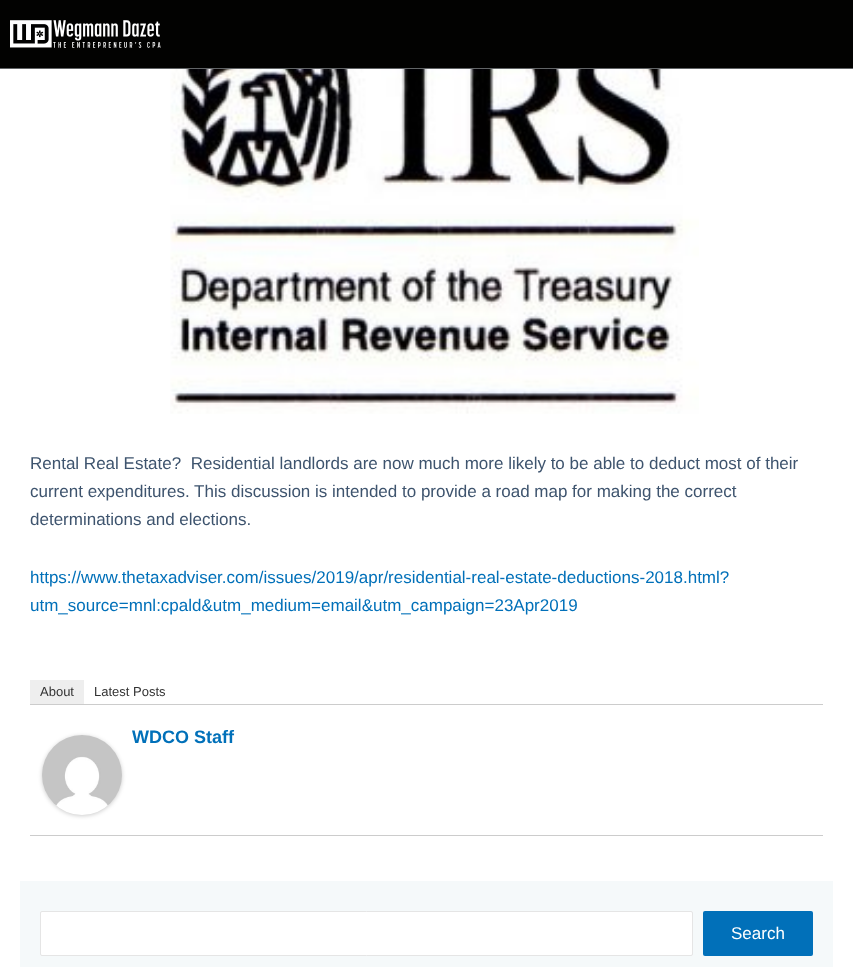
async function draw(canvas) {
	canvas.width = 853;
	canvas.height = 967;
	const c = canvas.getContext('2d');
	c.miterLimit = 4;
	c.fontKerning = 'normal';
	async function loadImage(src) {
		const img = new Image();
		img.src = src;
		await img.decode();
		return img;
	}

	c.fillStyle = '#fff';
	c.fillRect(0, 0, 853, 967);
	c.fillStyle = '#020201';
	c.fillRect(0, 0, 853, 68);
	c.fillStyle = '#616466';
	c.fillRect(0, 68, 853, 1);
	c.drawImage(await loadImage('img1.png'), 10, 20, 151, 28);
	c.drawImage(await loadImage('img2.png'), 170, 69, 529, 345);
	c.font = '17px Liberation Sans';
	c.fillStyle = '#3e546e';
	for (const [text, x, y] of [
		['Rental Real Estate?  Residential landlords are now much more likely to be able to deduct most of their', 30, 469],
		['current expenditures. This discussion is intended to provide a road map for making the correct', 30, 497],
		['determinations and elections.', 30, 525],
	]) {
		c.fillText(text, x, y);
	}
	c.fillStyle = '#0170b9';
	c.fillText('https://www.thetaxadviser.com/issues/2019/apr/residential-real-estate-deductions-2018.html?', 30, 583);
	c.fillText('utm_source=mnl:cpald&utm_medium=email&utm_campaign=23Apr2019', 30, 611);
	c.fillStyle = '#ccc';
	c.fillRect(30, 704, 793, 1);
	c.fillStyle = '#eee';
	c.fillRect(30, 680, 54, 24);
	c.font = '13px Liberation Sans';
	c.fillStyle = '#333';
	c.fillText('About', 40, 696);
	c.fillText('Latest Posts', 94, 696);
	c.fillStyle = '#ccc';
	c.fillRect(30, 835, 793, 1);
	c.fillStyle = '#00000033';
	c.filter = 'blur(2px)';
	c.beginPath();
	c.roundRect(42, 736, 80, 80, 40);
	c.fill();
	c.filter = 'none';
	c.drawImage(await loadImage('img3.png'), 42, 735, 80, 80);
	c.font = 'bold 18px Liberation Sans';
	c.fillStyle = '#0170b9';
	c.fillText('WDCO Staff', 132, 743);
	c.fillStyle = '#f5f9fa';
	c.fillRect(20, 881, 813, 86);
	c.fillStyle = '#fff';
	c.beginPath();
	c.roundRect(40.5, 911.5, 652, 44, 1.5);
	c.fill();
	c.strokeStyle = '#e5e5e5';
	c.stroke();
	c.fillStyle = '#0170b9';
	c.beginPath();
	c.roundRect(703, 911, 110, 45, 2);
	c.fill();
	c.font = '17px Liberation Sans';
	c.fillStyle = '#fff';
	c.fillText('Search', 731, 939);
}

draw(document.querySelector('canvas'));
